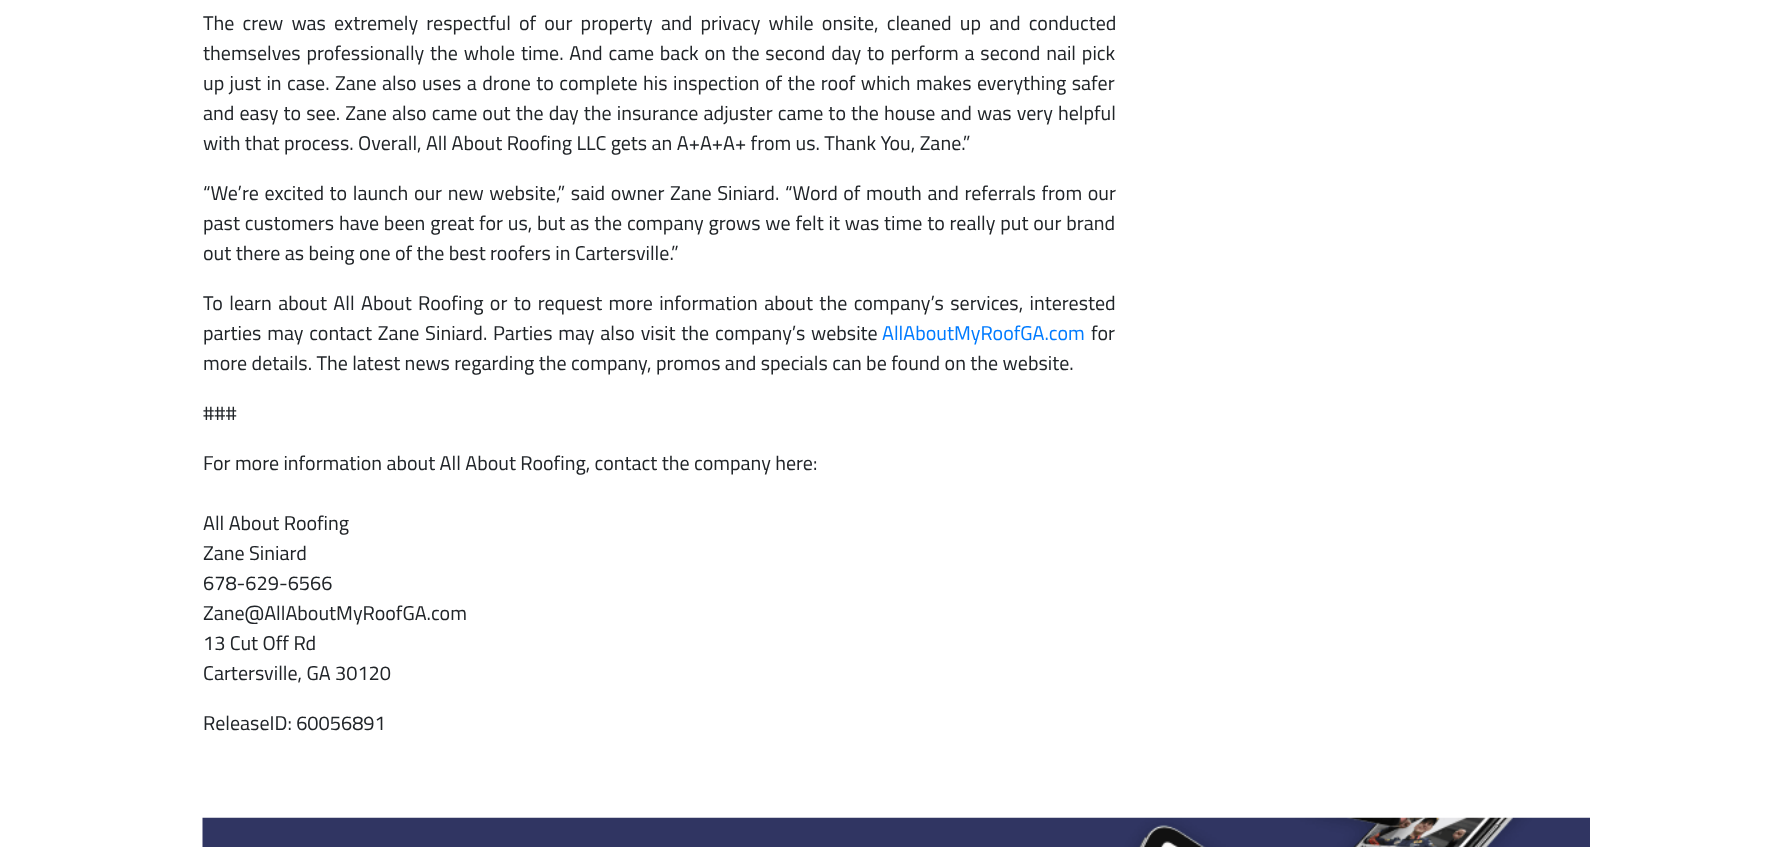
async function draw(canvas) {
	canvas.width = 1792;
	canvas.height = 847;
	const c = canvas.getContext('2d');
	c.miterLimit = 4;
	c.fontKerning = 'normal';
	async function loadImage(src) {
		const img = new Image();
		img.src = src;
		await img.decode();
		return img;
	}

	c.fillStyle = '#fff';
	c.fillRect(0, 0, 1792, 847);
	c.wordSpacing = '3.75px';
	c.font = '20px Cairo';
	c.fillStyle = '#212529';
	c.fillText('The crew was extremely respectful of our property and privacy while onsite, cleaned up and conducted', 203, 30);
	c.wordSpacing = '1.4px';
	c.fillText('themselves professionally the whole time. And came back on the second day to perform a second nail pick', 203, 60);
	c.wordSpacing = '1px';
	c.fillText('up just in case. Zane also uses a drone to complete his inspection of the roof which makes everything safer', 203, 90);
	c.wordSpacing = '0.7px';
	c.fillText('and easy to see. Zane also came out the day the insurance adjuster came to the house and was very helpful', 203, 120);
	c.wordSpacing = '0px';
	c.fillText('with that process. Overall, All About Roofing LLC gets an A+A+A+ from us. Thank You, Zane.”', 203, 150);
	c.wordSpacing = '1.2px';
	c.fillText('“We’re excited to launch our new website,” said owner Zane Siniard. “Word of mouth and referrals from our', 203, 200);
	c.wordSpacing = '0.4px';
	c.fillText('past customers have been great for us, but as the company grows we felt it was time to really put our brand', 203, 230);
	c.wordSpacing = '0px';
	c.fillText('out there as being one of the best roofers in Cartersville.”', 203, 260);
	c.wordSpacing = '2px';
	c.fillText('To learn about All About Roofing or to request more information about the company’s services, interested', 203, 310);
	c.wordSpacing = '1.4px';
	c.fillText('parties may contact Zane Siniard. Parties may also visit the company’s website', 203, 340);
	c.wordSpacing = '0px';
	c.fillStyle = '#007bff';
	c.fillText('AllAboutMyRoofGA.com', 882, 340);
	c.fillStyle = '#212529';
	for (const [text, x, y] of [
		['for', 1091, 340],
		['more details. The latest news regarding the company, promos and specials can be found on the website.', 203, 370],
		['###', 203, 420],
		['For more information about All About Roofing, contact the company here:', 203, 470],
		['All About Roofing', 203, 530],
		['Zane Siniard', 203, 560],
		['678-629-6566', 203, 590],
		['Zane@AllAboutMyRoofGA.com', 203, 620],
		['13 Cut Off Rd', 203, 650],
		['Cartersville, GA 30120', 203, 680],
		['ReleaseID: 60056891', 203, 730],
	]) {
		c.fillText(text, x, y);
	}
	c.drawImage(await loadImage('img1.png'), 202, 817, 1388, 30);
}

draw(document.querySelector('canvas'));
